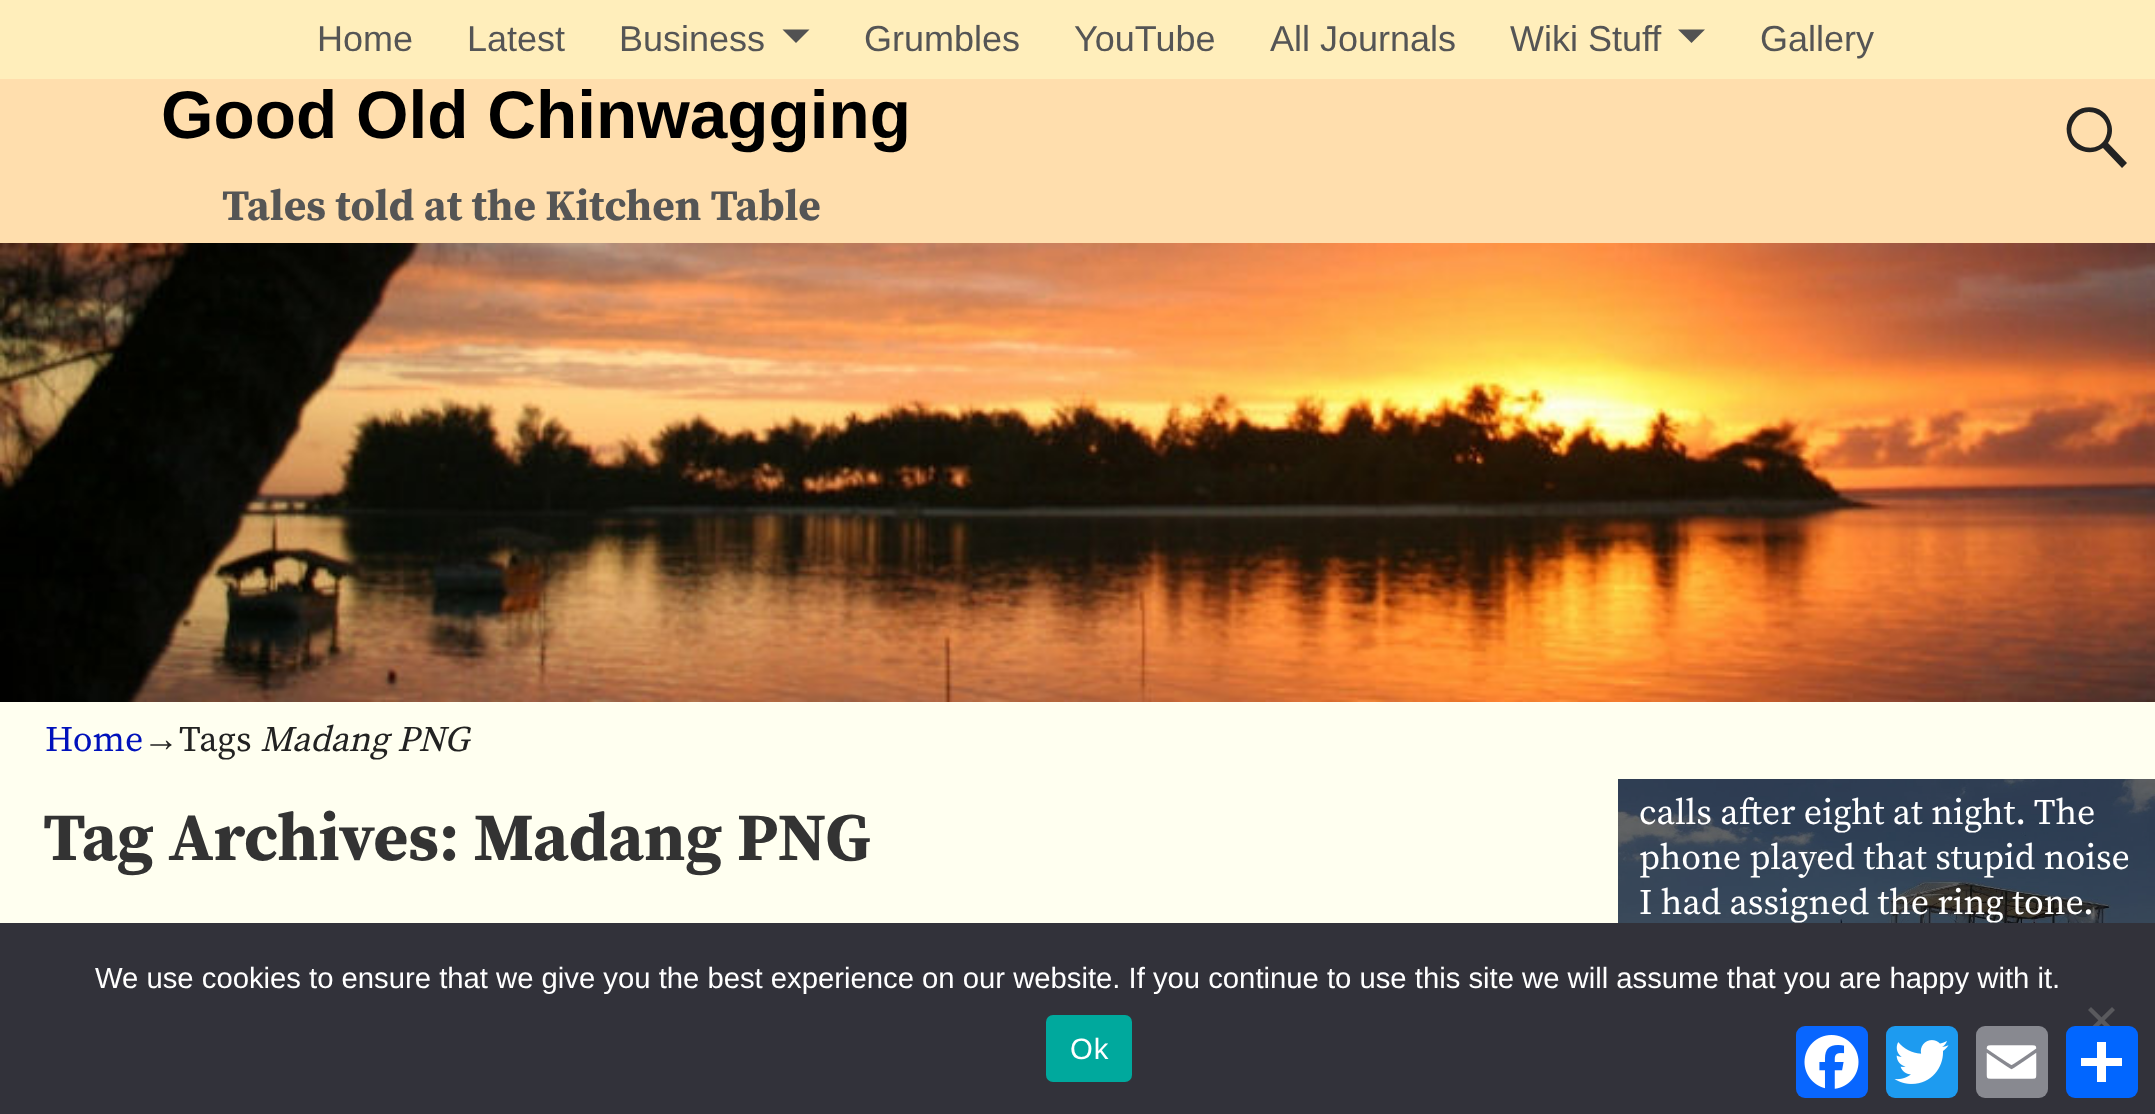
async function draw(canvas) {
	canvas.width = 2155;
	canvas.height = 1114;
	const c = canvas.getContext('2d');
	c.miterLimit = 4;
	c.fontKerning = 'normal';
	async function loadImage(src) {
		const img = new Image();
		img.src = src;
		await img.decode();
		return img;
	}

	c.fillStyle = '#fffff0';
	c.fillRect(0, 0, 2155, 1114);
	c.fillStyle = '#ffdead';
	c.fillRect(0, 79, 2155, 164);
	c.fillStyle = '#feb';
	c.fillRect(0, 0, 2155, 79);
	c.font = '36px Liberation Sans';
	c.fillStyle = '#555';
	for (const [text, x, y] of [
		['Home', 317, 51],
		['Latest', 467, 51],
		['Business', 619, 51],
	]) {
		c.fillText(text, x, y);
	}
	c.fillStyle = '#525252';
	c.beginPath();
	c.moveTo(782.5, 29.5);
	c.lineTo(809.5, 29.5);
	c.lineTo(796, 43);
	c.closePath();
	c.fill();
	c.fillStyle = '#555';
	for (const [text, x, y] of [
		['Grumbles', 864, 51],
		['YouTube', 1074, 51],
		['All Journals', 1270, 51],
		['Wiki Stuff', 1510, 51],
	]) {
		c.fillText(text, x, y);
	}
	c.fillStyle = '#525252';
	c.beginPath();
	c.moveTo(1678, 29.5);
	c.lineTo(1705, 29.5);
	c.lineTo(1691.5, 43);
	c.closePath();
	c.fill();
	c.fillStyle = '#555';
	c.fillText('Gallery', 1760, 51);
	c.font = 'bold 67.5px Liberation Sans';
	c.fillStyle = '#000';
	c.fillText('Good Old Chinwagging', 161, 138);
	c.fillStyle = '#222';
	c.beginPath();
	c.moveTo(2127, 163);
	c.lineTo(2122, 168);
	c.lineTo(2103, 148);
	c.bezierCurveTo(2091, 156, 2075, 152, 2069, 140);
	c.bezierCurveTo(2067, 135, 2066, 130, 2067, 125);
	c.bezierCurveTo(2072, 102, 2105, 101, 2111, 124);
	c.bezierCurveTo(2113, 130, 2112, 137, 2108, 143);
	c.closePath();
	c.moveTo(2074, 121);
	c.bezierCurveTo(2062, 141, 2093, 159, 2105, 139);
	c.bezierCurveTo(2116, 118, 2086, 101, 2074, 121);
	c.closePath();
	c.fill();
	c.font = 'bold 43.25px Source Serif Pro';
	c.fillStyle = '#555';
	c.fillText('Tales told at the Kitchen Table', 222, 220);
	c.drawImage(await loadImage('img1.png'), 0, 243, 2155, 459);
	c.font = '36px Source Serif Pro';
	c.fillStyle = '#01b';
	c.fillText('Home', 45, 751);
	c.font = '36px Liberation Serif';
	c.fillStyle = '#222';
	c.fillText('→', 143, 751);
	c.font = '36px Source Serif Pro';
	c.fillText('Tags', 179, 751);
	c.font = 'italic 36px Source Serif Pro';
	c.fillText('Madang PNG', 260, 751);
	c.font = 'bold 67.5px Source Serif Pro';
	c.fillStyle = '#333';
	c.fillText('Tag Archives: Madang PNG', 43, 860);
	c.drawImage(await loadImage('img2.png'), 1618, 779, 537, 144);
	c.font = '36px Source Serif Pro';
	c.fillStyle = '#fff';
	for (const [text, x, y] of [
		['calls after eight at night. The', 1639, 824],
		['phone played that stupid noise', 1639, 869],
		['I had assigned the ring tone.', 1639, 914],
	]) {
		c.fillText(text, x, y);
	}
	c.fillStyle = '#32323a';
	c.fillRect(0, 923, 2155, 191);
	c.font = '29.25px Liberation Sans';
	c.fillStyle = '#fff';
	c.fillText('We use cookies to ensure that we give you the best experience on our website. If you continue to use this site we will assume that you are happy with it.', 95, 988);
	c.fillStyle = '#59595d';
	c.beginPath();
	c.moveTo(2112, 1007);
	c.lineTo(2115, 1010);
	c.lineTo(2091, 1034);
	c.lineTo(2088, 1030.5);
	c.closePath();
	c.fill();
	c.beginPath();
	c.moveTo(2088, 1010);
	c.lineTo(2091, 1007);
	c.lineTo(2115, 1030.5);
	c.lineTo(2112, 1034);
	c.closePath();
	c.fill();
	c.fillStyle = '#00a99d';
	c.beginPath();
	c.roundRect(1046, 1015, 86, 67, 7);
	c.fill();
	c.letterSpacing = '1px';
	c.fillStyle = '#fff';
	c.fillText('Ok', 1070, 1059);
	c.fillStyle = '#0866ff';
	c.beginPath();
	c.roundRect(1796, 1026, 72, 72, 9);
	c.fill();
	c.drawImage(await loadImage('img3.png'), 1804, 1035, 55, 54);
	c.fillStyle = '#1d9bf0';
	c.beginPath();
	c.roundRect(1886, 1026, 72, 72, 9);
	c.fill();
	c.drawImage(await loadImage('img4.png'), 1894, 1040, 55, 44);
	c.fillStyle = '#888990';
	c.beginPath();
	c.roundRect(1976, 1026, 72, 72, 9);
	c.fill();
	c.drawImage(await loadImage('img5.png'), 1986, 1045, 51, 34);
	c.fillStyle = '#0166ff';
	c.beginPath();
	c.roundRect(2066, 1026, 72, 72, 9);
	c.fill();
	c.fillStyle = '#fff';
	c.fillRect(2097, 1042, 9, 40);
	c.fillRect(2081, 1058, 41, 8);
}

draw(document.querySelector('canvas'));
